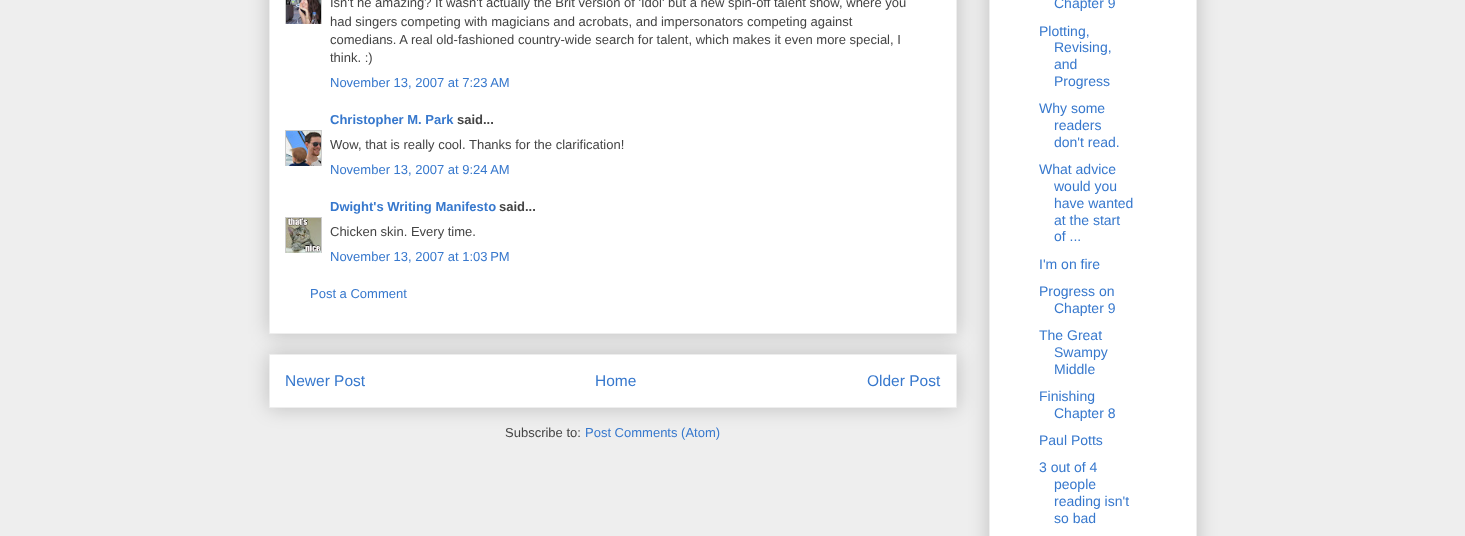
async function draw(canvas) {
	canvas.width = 1465;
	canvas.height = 536;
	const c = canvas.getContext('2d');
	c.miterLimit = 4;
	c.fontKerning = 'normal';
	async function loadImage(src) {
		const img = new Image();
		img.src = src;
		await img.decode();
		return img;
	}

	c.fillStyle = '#eee';
	c.fillRect(0, 0, 1465, 536);
	c.fillStyle = '#00000033';
	c.filter = 'blur(10px)';
	c.beginPath();
	c.rect(269, 354, 688, 54);
	c.fill();
	c.filter = 'none';
	c.fillStyle = '#fff';
	c.beginPath();
	c.rect(269.5, 354.5, 687, 53);
	c.fill();
	c.strokeStyle = '#eee';
	c.stroke();
	c.fillStyle = '#00000033';
	c.filter = 'blur(10px)';
	c.beginPath();
	c.rect(269, -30, 688, 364);
	c.fill();
	c.filter = 'none';
	c.fillStyle = '#fff';
	c.beginPath();
	c.rect(269.5, -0.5, 687, 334);
	c.fill();
	c.stroke();
	c.save();
	c.beginPath();
	c.rect(285, 0, 37, 24);
	c.clip();
	c.strokeStyle = '#ccc';
	c.strokeRect(285.5, -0.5, 36, 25);
	c.restore();
	c.drawImage(await loadImage('img1.png'), 286, 0, 35, 24);
	c.font = '13px Liberation Sans';
	c.fillStyle = '#444';
	for (const [text, x, y] of [
		['Isn\'t he amazing? It wasn\'t actually the Brit version of \'Idol\' but a new spin-off talent show, where you', 330, 7],
		['had singers competing with magicians and acrobats, and impersonators competing against', 330, 26],
		['comedians. A real old-fashioned country-wide search for talent, which makes it even more special, I', 330, 44],
		['think. :)', 330, 62],
	]) {
		c.fillText(text, x, y);
	}
	c.fillStyle = '#3778cd';
	c.fillText('November 13, 2007 at 7:23 AM', 330, 87);
	c.font = 'bold 13px Liberation Sans';
	c.fillText('Christopher M. Park', 330, 124);
	c.fillStyle = '#444';
	c.fillText('said...', 457, 124);
	c.save();
	c.beginPath();
	c.rect(285, 130, 37, 36);
	c.clip();
	c.strokeStyle = '#ccc';
	c.strokeRect(285.5, 130.5, 36, 36);
	c.restore();
	c.drawImage(await loadImage('img2.png'), 286, 131, 35, 35);
	c.font = '13px Liberation Sans';
	c.fillText('Wow, that is really cool. Thanks for the clarification!', 330, 149);
	c.fillStyle = '#3778cd';
	c.fillText('November 13, 2007 at 9:24 AM', 330, 174);
	c.font = 'bold 13px Liberation Sans';
	c.fillText('Dwight\'s Writing Manifesto', 330, 211);
	c.fillStyle = '#444';
	c.fillText('said...', 499, 211);
	c.save();
	c.beginPath();
	c.rect(285, 217, 37, 36);
	c.clip();
	c.strokeStyle = '#ccc';
	c.strokeRect(285.5, 217.5, 36, 36);
	c.restore();
	c.drawImage(await loadImage('img3.png'), 286, 218, 35, 35);
	c.font = '13px Liberation Sans';
	c.fillText('Chicken skin. Every time.', 330, 236);
	c.fillStyle = '#3778cd';
	c.fillText('November 13, 2007 at 1:03 PM', 330, 261);
	c.fillText('Post a Comment', 310, 298);
	c.font = '15.5px Liberation Sans';
	for (const [text, x, y] of [
		['Newer Post', 285, 386],
		['Home', 595, 386],
		['Older Post', 867, 386],
	]) {
		c.fillText(text, x, y);
	}
	c.font = '13px Liberation Sans';
	c.fillStyle = '#444';
	c.fillText('Subscribe to:', 505, 437);
	c.fillStyle = '#3778cd';
	c.fillText('Post Comments (Atom)', 585, 437);
	c.fillStyle = '#00000033';
	c.filter = 'blur(10px)';
	c.beginPath();
	c.rect(989, -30, 208, 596);
	c.fill();
	c.filter = 'none';
	c.fillStyle = '#fff';
	c.beginPath();
	c.rect(989.5, -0.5, 207, 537);
	c.fill();
	c.stroke();
	c.font = '14px Liberation Sans';
	c.fillStyle = '#3778cd';
	for (const [text, x, y] of [
		['Chapter 9', 1054, 8],
		['Plotting,', 1039, 36],
		['Revising,', 1054, 52],
		['and', 1054, 69],
		['Progress', 1054, 86],
		['Why some', 1039, 113],
		['readers', 1054, 130],
		['don\'t read.', 1054, 147],
		['What advice', 1039, 174],
		['would you', 1054, 191],
		['have wanted', 1054, 208],
		['at the start', 1054, 225],
		['of ...', 1054, 241],
		['I\'m on fire', 1039, 269],
		['Progress on', 1039, 296],
		['Chapter 9', 1054, 313],
		['The Great', 1039, 340],
		['Swampy', 1054, 357],
		['Middle', 1054, 374],
		['Finishing', 1039, 401],
		['Chapter 8', 1054, 418],
		['Paul Potts', 1039, 445],
		['3 out of 4', 1039, 472],
		['people', 1054, 489],
		['reading isn\'t', 1054, 506],
		['so bad', 1054, 523],
	]) {
		c.fillText(text, x, y);
	}
}

draw(document.querySelector('canvas'));
